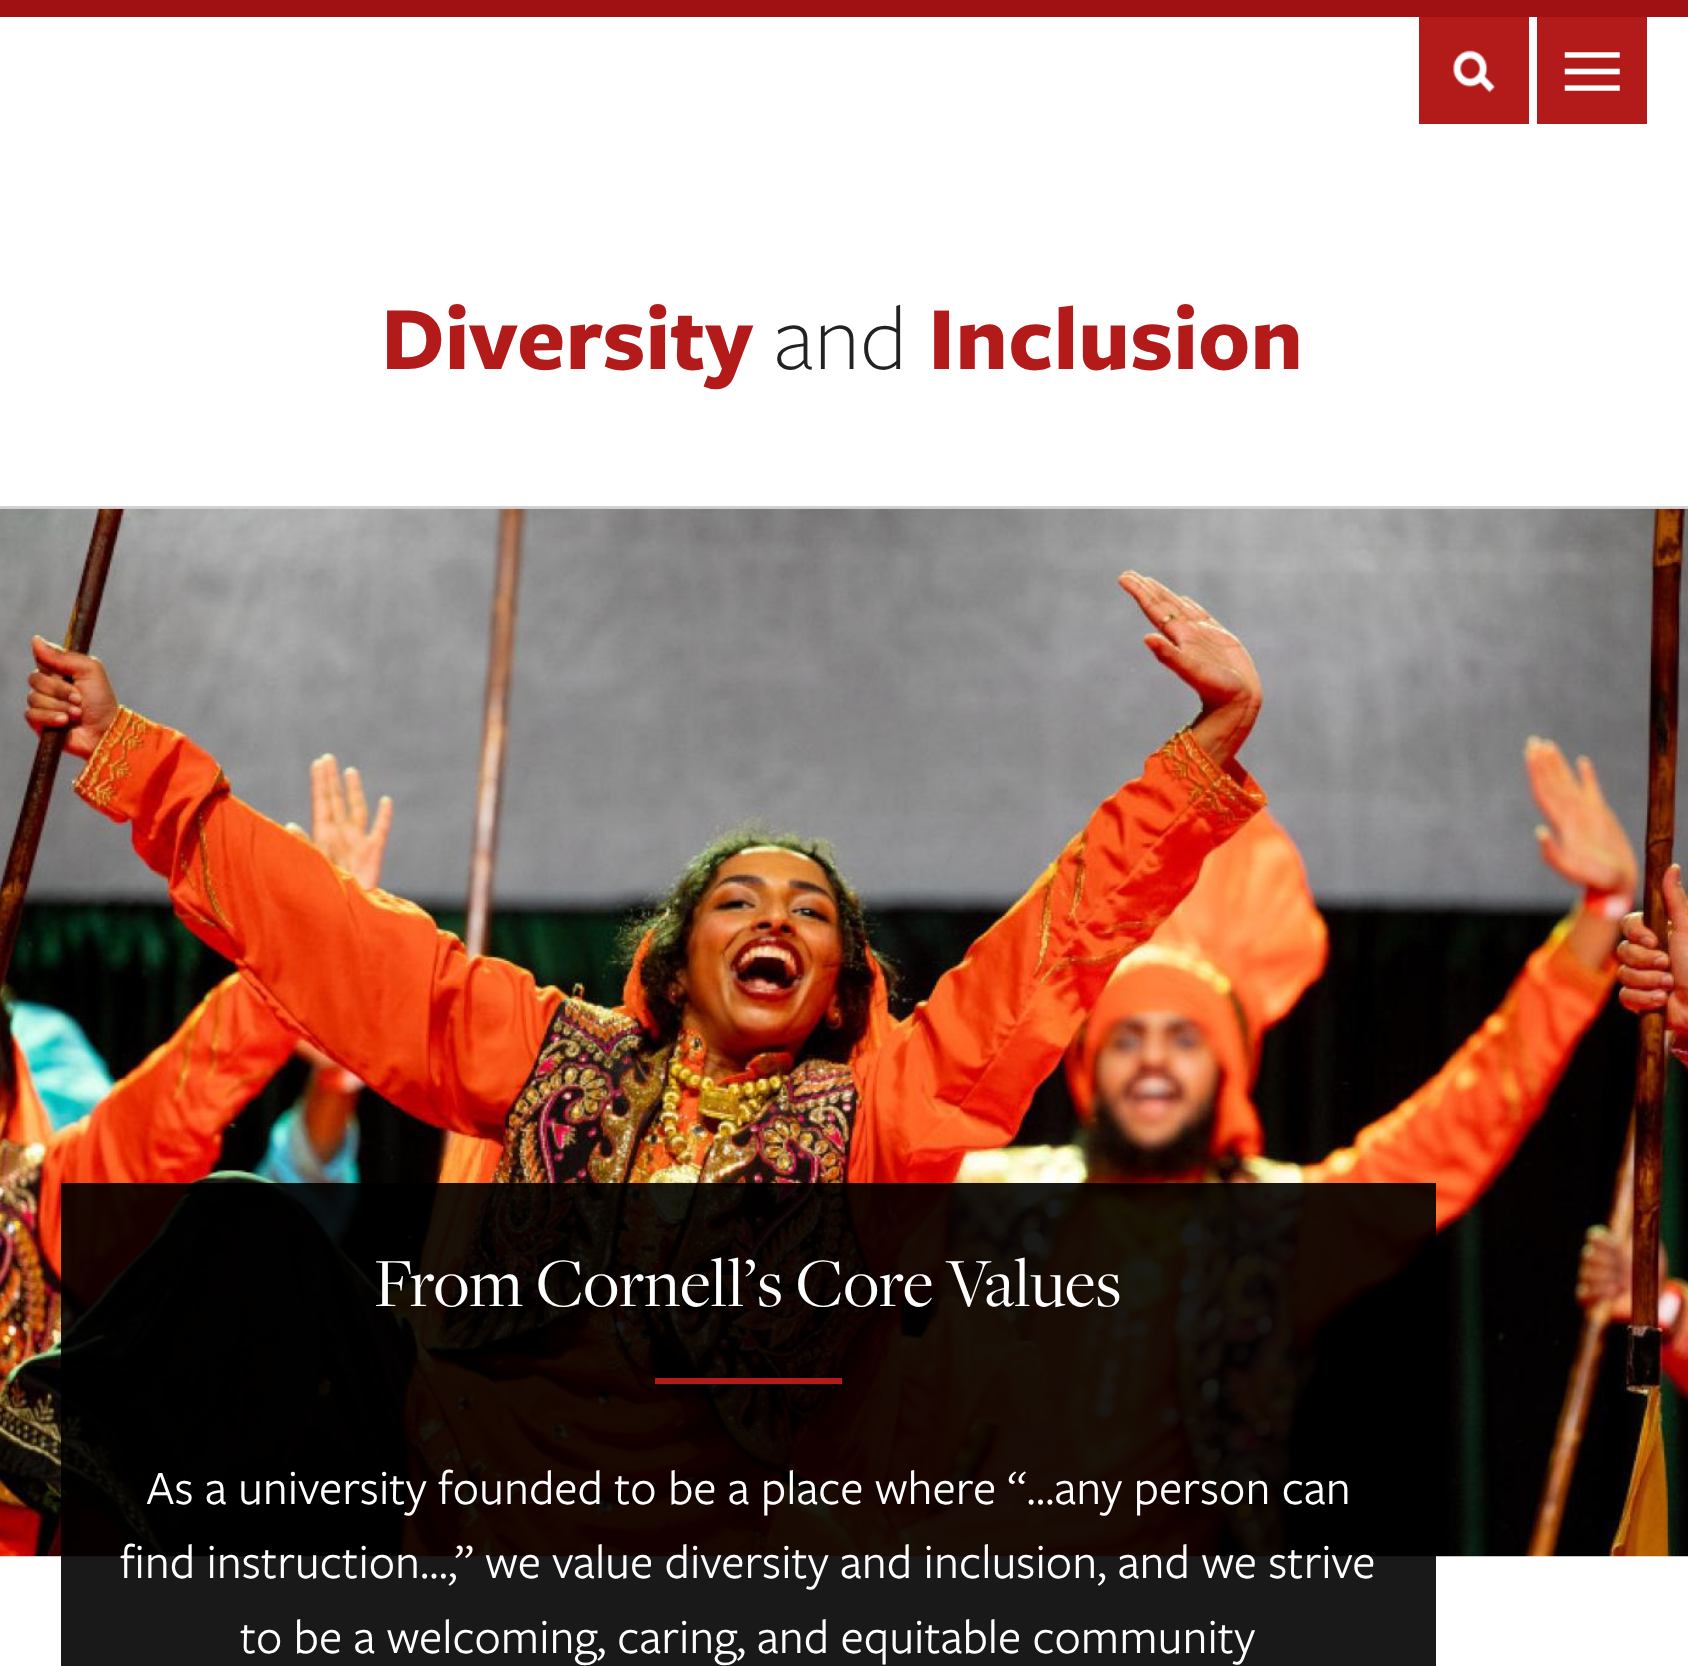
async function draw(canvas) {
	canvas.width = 1688;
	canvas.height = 1666;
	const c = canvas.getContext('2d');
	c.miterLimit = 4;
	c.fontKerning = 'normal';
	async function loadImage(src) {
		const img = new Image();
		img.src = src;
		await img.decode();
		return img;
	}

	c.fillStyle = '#fff';
	c.fillRect(0, 0, 1688, 1666);
	c.fillStyle = '#a01114';
	c.fillRect(0, 0, 1688, 17);
	c.fillStyle = '#b31b1b';
	c.fillRect(1419, 17, 110, 107);
	c.drawImage(await loadImage('img1.png'), 1453, 50, 42, 43);
	c.fillRect(1537, 17, 110, 107);
	c.drawImage(await loadImage('img2.png'), 1564, 52, 56, 39);
	c.fillStyle = '#d2d2d5';
	c.fillRect(0, 506, 1688, 3);
	c.font = 'bold 93.5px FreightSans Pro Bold';
	c.fillStyle = '#b31b1b';
	c.fillText('Diversity', 381, 369);
	c.font = '300 93.5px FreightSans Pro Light';
	c.fillStyle = '#222';
	c.fillText('and', 774, 369);
	c.font = 'bold 93.5px FreightSans Pro Bold';
	c.fillStyle = '#b31b1b';
	c.fillText('Inclusion', 928, 369);
	c.drawImage(await loadImage('img3.png'), 0, 508, 1688, 1049);
	c.fillStyle = '#000000e6';
	c.fillRect(61, 1183, 1375, 483);
	c.font = '71.5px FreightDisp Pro';
	c.fillStyle = '#fff';
	c.fillText('From Cornell’s Core Values', 374, 1306);
	c.fillStyle = '#b31b1b';
	c.fillRect(655, 1378, 187, 6);
	c.font = '49.5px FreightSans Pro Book';
	c.fillStyle = '#fff';
	for (const [text, x, y] of [
		['As a university founded to be a place where “…any person can', 146, 1504],
		['find instruction…,” we value diversity and inclusion, and we strive', 120, 1578],
		['to be a welcoming, caring, and equitable community', 240, 1653],
	]) {
		c.fillText(text, x, y);
	}
}

draw(document.querySelector('canvas'));
